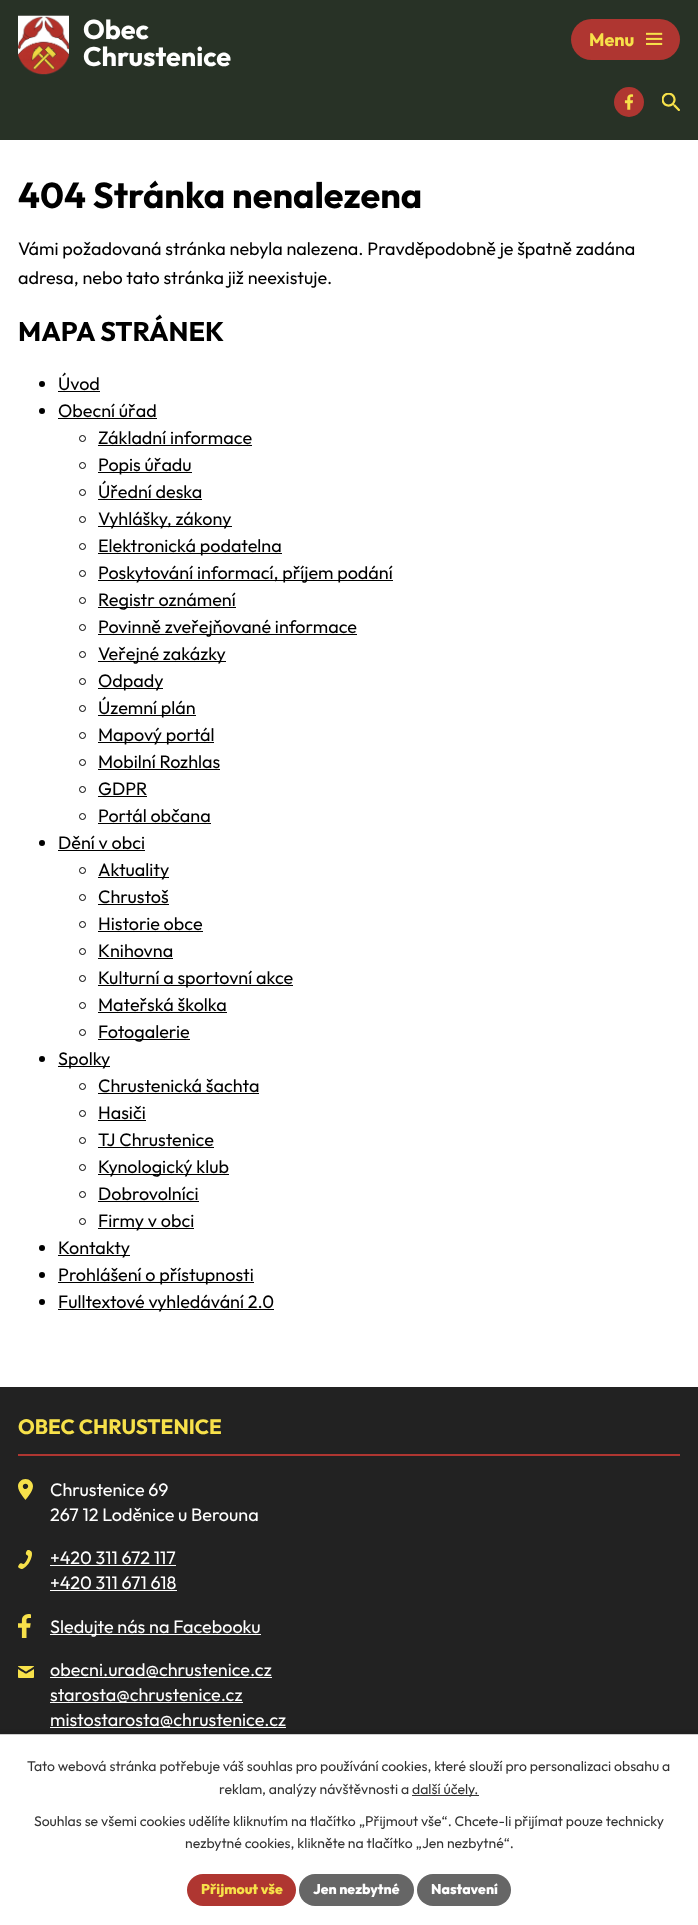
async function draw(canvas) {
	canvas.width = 698;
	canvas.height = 1925;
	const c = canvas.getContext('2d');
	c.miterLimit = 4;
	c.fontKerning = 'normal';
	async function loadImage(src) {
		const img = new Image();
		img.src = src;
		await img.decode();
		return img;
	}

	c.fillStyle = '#fff';
	c.fillRect(0, 0, 698, 1925);
	c.fillStyle = '#283226';
	c.fillRect(0, 0, 698, 140);
	c.drawImage(await loadImage('img1.png'), 18, 15, 51, 60);
	c.font = 'bold 27px Outfit';
	c.fillStyle = '#fff';
	c.fillText('Obec', 83, 39);
	c.fillText('Chrustenice', 83, 66);
	c.fillStyle = '#af3631';
	c.beginPath();
	c.arc(629, 102, 15, 0, 2 * Math.PI);
	c.fill();
	c.drawImage(await loadImage('img2.png'), 624, 94, 10, 16);
	c.drawImage(await loadImage('img3.png'), 662, 93, 18, 18);
	c.beginPath();
	c.roundRect(571, 19, 109, 41, 20.5);
	c.fill();
	c.font = 'bold 18px Outfit';
	c.fillStyle = '#f7e14a';
	c.fillText('Menu', 589, 46);
	c.drawImage(await loadImage('img4.png'), 646, 32, 17, 13);
	c.font = 'bold 36px Outfit';
	c.fillStyle = '#000';
	c.fillText('404 Stránka nenalezena', 18, 208);
	c.font = '18px Outfit';
	c.fillText('Vámi požadovaná stránka nebyla nalezena. Pravděpodobně je špatně zadána', 18, 255);
	c.fillText('adresa, nebo tato stránka již neexistuje.', 18, 284);
	c.font = 'bold 27px Outfit';
	c.fillText('MAPA STRÁNEK', 18, 341);
	c.beginPath();
	c.arc(42, 384, 3, 0, 2 * Math.PI);
	c.fill();
	c.font = '18px Outfit';
	c.fillText('Úvod', 58, 390);
	c.fillRect(58, 391, 42, 1);
	c.beginPath();
	c.arc(42, 411, 3, 0, 2 * Math.PI);
	c.fill();
	c.fillText('Obecní úřad', 58, 417);
	c.fillRect(58, 418, 99, 1);
	c.beginPath();
	c.arc(82.5, 438.5, 3, 0, 2 * Math.PI);
	c.strokeStyle = '#000';
	c.stroke();
	c.fillText('Základní informace', 98, 444);
	c.fillRect(98, 445, 154, 1);
	c.beginPath();
	c.arc(82.5, 465.5, 3, 0, 2 * Math.PI);
	c.stroke();
	c.fillRect(98, 472, 94, 1);
	c.fillText('Popis úřadu', 98, 471);
	c.beginPath();
	c.arc(82.5, 492.5, 3, 0, 2 * Math.PI);
	c.stroke();
	c.fillText('Úřední deska', 98, 498);
	c.fillRect(98, 499, 104, 1);
	c.beginPath();
	c.arc(82.5, 519.5, 3, 0, 2 * Math.PI);
	c.stroke();
	c.fillRect(98, 526, 134, 1);
	c.fillText('Vyhlášky, zákony', 98, 525);
	c.beginPath();
	c.arc(82.5, 546.5, 3, 0, 2 * Math.PI);
	c.stroke();
	c.fillRect(98, 553, 184, 1);
	c.fillText('Elektronická podatelna', 98, 552);
	c.beginPath();
	c.arc(82.5, 573.5, 3, 0, 2 * Math.PI);
	c.stroke();
	c.fillRect(98, 580, 295, 1);
	c.fillText('Poskytování informací, příjem podání', 98, 579);
	c.beginPath();
	c.arc(82.5, 600.5, 3, 0, 2 * Math.PI);
	c.stroke();
	c.fillRect(98, 607, 138, 1);
	c.fillText('Registr oznámení', 98, 606);
	c.beginPath();
	c.arc(82.5, 627.5, 3, 0, 2 * Math.PI);
	c.stroke();
	c.fillRect(98, 634, 259, 1);
	c.fillText('Povinně zveřejňované informace', 98, 633);
	c.beginPath();
	c.arc(82.5, 654.5, 3, 0, 2 * Math.PI);
	c.stroke();
	c.fillRect(98, 661, 128, 1);
	c.fillText('Veřejné zakázky', 98, 660);
	c.beginPath();
	c.arc(82.5, 681.5, 3, 0, 2 * Math.PI);
	c.stroke();
	c.fillRect(98, 688, 65, 1);
	c.fillText('Odpady', 98, 687);
	c.beginPath();
	c.arc(82.5, 708.5, 3, 0, 2 * Math.PI);
	c.stroke();
	c.fillRect(98, 715, 98, 1);
	c.fillText('Územní plán', 98, 714);
	c.beginPath();
	c.arc(82.5, 735.5, 3, 0, 2 * Math.PI);
	c.stroke();
	c.fillRect(98, 742, 116, 1);
	c.fillText('Mapový portál', 98, 741);
	c.beginPath();
	c.arc(82.5, 762.5, 3, 0, 2 * Math.PI);
	c.stroke();
	c.fillText('Mobilní Rozhlas', 98, 768);
	c.fillRect(98, 769, 122, 1);
	c.beginPath();
	c.arc(82.5, 789.5, 3, 0, 2 * Math.PI);
	c.stroke();
	c.fillText('GDPR', 98, 795);
	c.fillRect(98, 796, 49, 1);
	c.beginPath();
	c.arc(82.5, 816.5, 3, 0, 2 * Math.PI);
	c.stroke();
	c.fillText('Portál občana', 98, 822);
	c.fillRect(98, 823, 113, 1);
	c.beginPath();
	c.arc(42, 843, 3, 0, 2 * Math.PI);
	c.fill();
	c.fillText('Dění v obci', 58, 849);
	c.fillRect(58, 850, 87, 1);
	c.beginPath();
	c.arc(82.5, 870.5, 3, 0, 2 * Math.PI);
	c.stroke();
	c.fillRect(98, 877, 71, 1);
	c.fillText('Aktuality', 98, 876);
	c.beginPath();
	c.arc(82.5, 897.5, 3, 0, 2 * Math.PI);
	c.stroke();
	c.fillText('Chrustoš', 98, 903);
	c.fillRect(98, 904, 71, 1);
	c.beginPath();
	c.arc(82.5, 924.5, 3, 0, 2 * Math.PI);
	c.stroke();
	c.fillText('Historie obce', 98, 930);
	c.fillRect(98, 931, 105, 1);
	c.beginPath();
	c.arc(82.5, 951.5, 3, 0, 2 * Math.PI);
	c.stroke();
	c.fillText('Knihovna', 98, 957);
	c.fillRect(98, 958, 75, 1);
	c.beginPath();
	c.arc(82.5, 978.5, 3, 0, 2 * Math.PI);
	c.stroke();
	c.fillRect(98, 985, 195, 1);
	c.fillText('Kulturní a sportovní akce', 98, 984);
	c.beginPath();
	c.arc(82.5, 1005.5, 3, 0, 2 * Math.PI);
	c.stroke();
	c.fillText('Mateřská školka', 98, 1011);
	c.fillRect(98, 1012, 129, 1);
	c.beginPath();
	c.arc(82.5, 1032.5, 3, 0, 2 * Math.PI);
	c.stroke();
	c.fillRect(98, 1039, 92, 1);
	c.fillText('Fotogalerie', 98, 1038);
	c.beginPath();
	c.arc(42, 1059, 3, 0, 2 * Math.PI);
	c.fill();
	c.fillRect(58, 1066, 52, 1);
	c.fillText('Spolky', 58, 1065);
	c.beginPath();
	c.arc(82.5, 1086.5, 3, 0, 2 * Math.PI);
	c.stroke();
	c.fillText('Chrustenická šachta', 98, 1092);
	c.fillRect(98, 1093, 161, 1);
	c.beginPath();
	c.arc(82.5, 1113.5, 3, 0, 2 * Math.PI);
	c.stroke();
	c.fillText('Hasiči', 98, 1119);
	c.fillRect(98, 1120, 48, 1);
	c.beginPath();
	c.arc(82.5, 1140.5, 3, 0, 2 * Math.PI);
	c.stroke();
	c.fillText('TJ Chrustenice', 98, 1146);
	c.fillRect(98, 1147, 116, 1);
	c.beginPath();
	c.arc(82.5, 1167.5, 3, 0, 2 * Math.PI);
	c.stroke();
	c.fillRect(98, 1174, 131, 1);
	c.fillText('Kynologický klub', 98, 1173);
	c.beginPath();
	c.arc(82.5, 1194.5, 3, 0, 2 * Math.PI);
	c.stroke();
	c.fillText('Dobrovolníci', 98, 1200);
	c.fillRect(98, 1201, 101, 1);
	c.beginPath();
	c.arc(82.5, 1221.5, 3, 0, 2 * Math.PI);
	c.stroke();
	c.fillRect(98, 1228, 96, 1);
	c.fillText('Firmy v obci', 98, 1227);
	c.beginPath();
	c.arc(42, 1248, 3, 0, 2 * Math.PI);
	c.fill();
	c.fillRect(58, 1255, 72, 1);
	c.fillText('Kontakty', 58, 1254);
	c.beginPath();
	c.arc(42, 1275, 3, 0, 2 * Math.PI);
	c.fill();
	c.fillRect(58, 1282, 196, 1);
	c.fillText('Prohlášení o přístupnosti', 58, 1281);
	c.beginPath();
	c.arc(42, 1302, 3, 0, 2 * Math.PI);
	c.fill();
	c.fillRect(58, 1309, 216, 1);
	c.fillText('Fulltextové vyhledávání 2.0', 58, 1308);
	c.fillStyle = '#222';
	c.fillRect(0, 1387, 698, 347);
	c.fillStyle = '#af3631';
	c.fillRect(18, 1454, 662, 2);
	c.font = 'bold 20.75px Outfit';
	c.fillStyle = '#f7e14a';
	c.fillText('OBEC CHRUSTENICE', 18, 1434);
	c.drawImage(await loadImage('img5.png'), 18, 1479, 15, 21);
	c.font = '18px Outfit';
	c.fillStyle = '#fff';
	c.fillText('Chrustenice 69', 50, 1496);
	c.fillText('267 12 Loděnice u Berouna', 50, 1521);
	c.drawImage(await loadImage('img6.png'), 18, 1550, 14, 19);
	c.fillText('+420 311 672 117', 50, 1564);
	c.fillRect(50, 1565, 126, 1);
	c.fillText('+420 311 671 618', 50, 1589);
	c.fillRect(50, 1590, 127, 1);
	c.drawImage(await loadImage('img7.png'), 18, 1614, 13, 24);
	c.fillRect(50, 1634, 211, 1);
	c.fillText('Sledujte nás na Facebooku', 50, 1633);
	c.drawImage(await loadImage('img8.png'), 18, 1666, 16, 12);
	c.fillRect(50, 1677, 222, 1);
	c.fillText('obecni.urad@chrustenice.cz', 50, 1676);
	c.fillRect(50, 1702, 193, 1);
	c.fillText('starosta@chrustenice.cz', 50, 1701);
	c.fillRect(50, 1727, 236, 1);
	c.fillText('mistostarosta@chrustenice.cz', 50, 1726);
	c.fillStyle = '#00000033';
	c.filter = 'blur(2.5px)';
	c.beginPath();
	c.rect(0, 1734, 698, 191);
	c.fill();
	c.filter = 'none';
	c.fillStyle = '#fff';
	c.fillRect(0, 1735, 698, 190);
	c.fillStyle = '#ccc';
	c.fillRect(0, 1734, 698, 1);
	c.font = '14px Outfit';
	c.fillStyle = '#333';
	c.fillText('Tato webová stránka potřebuje váš souhlas pro používání cookies, které slouží pro personalizaci obsahu a', 27, 1771);
	c.fillText('reklam, analýzy návštěvnosti a', 219, 1794);
	c.fillRect(412, 1795, 67, 1);
	for (const [text, x, y] of [
		['další účely.', 412, 1794],
		['Souhlas se všemi cookies udělíte kliknutím na tlačítko „Přijmout vše“. Chcete-li přijímat pouze technicky', 34, 1826],
		['nezbytné cookies, klikněte na tlačítko „Jen nezbytné“.', 185, 1848],
	]) {
		c.fillText(text, x, y);
	}
	c.fillStyle = '#af3631';
	c.beginPath();
	c.roundRect(187, 1874, 109, 32, 16);
	c.fill();
	c.font = '800 14px Outfit';
	c.fillStyle = '#f7e14a';
	c.fillText('Přijmout vše', 201, 1894);
	c.fillStyle = '#666';
	c.beginPath();
	c.roundRect(299, 1874, 115, 32, 16);
	c.fill();
	c.fillStyle = '#fff';
	c.fillText('Jen nezbytné', 313, 1894);
	c.fillStyle = '#666';
	c.beginPath();
	c.roundRect(417, 1874, 94, 32, 16);
	c.fill();
	c.fillStyle = '#fff';
	c.fillText('Nastavení', 431, 1894);
}

draw(document.querySelector('canvas'));
